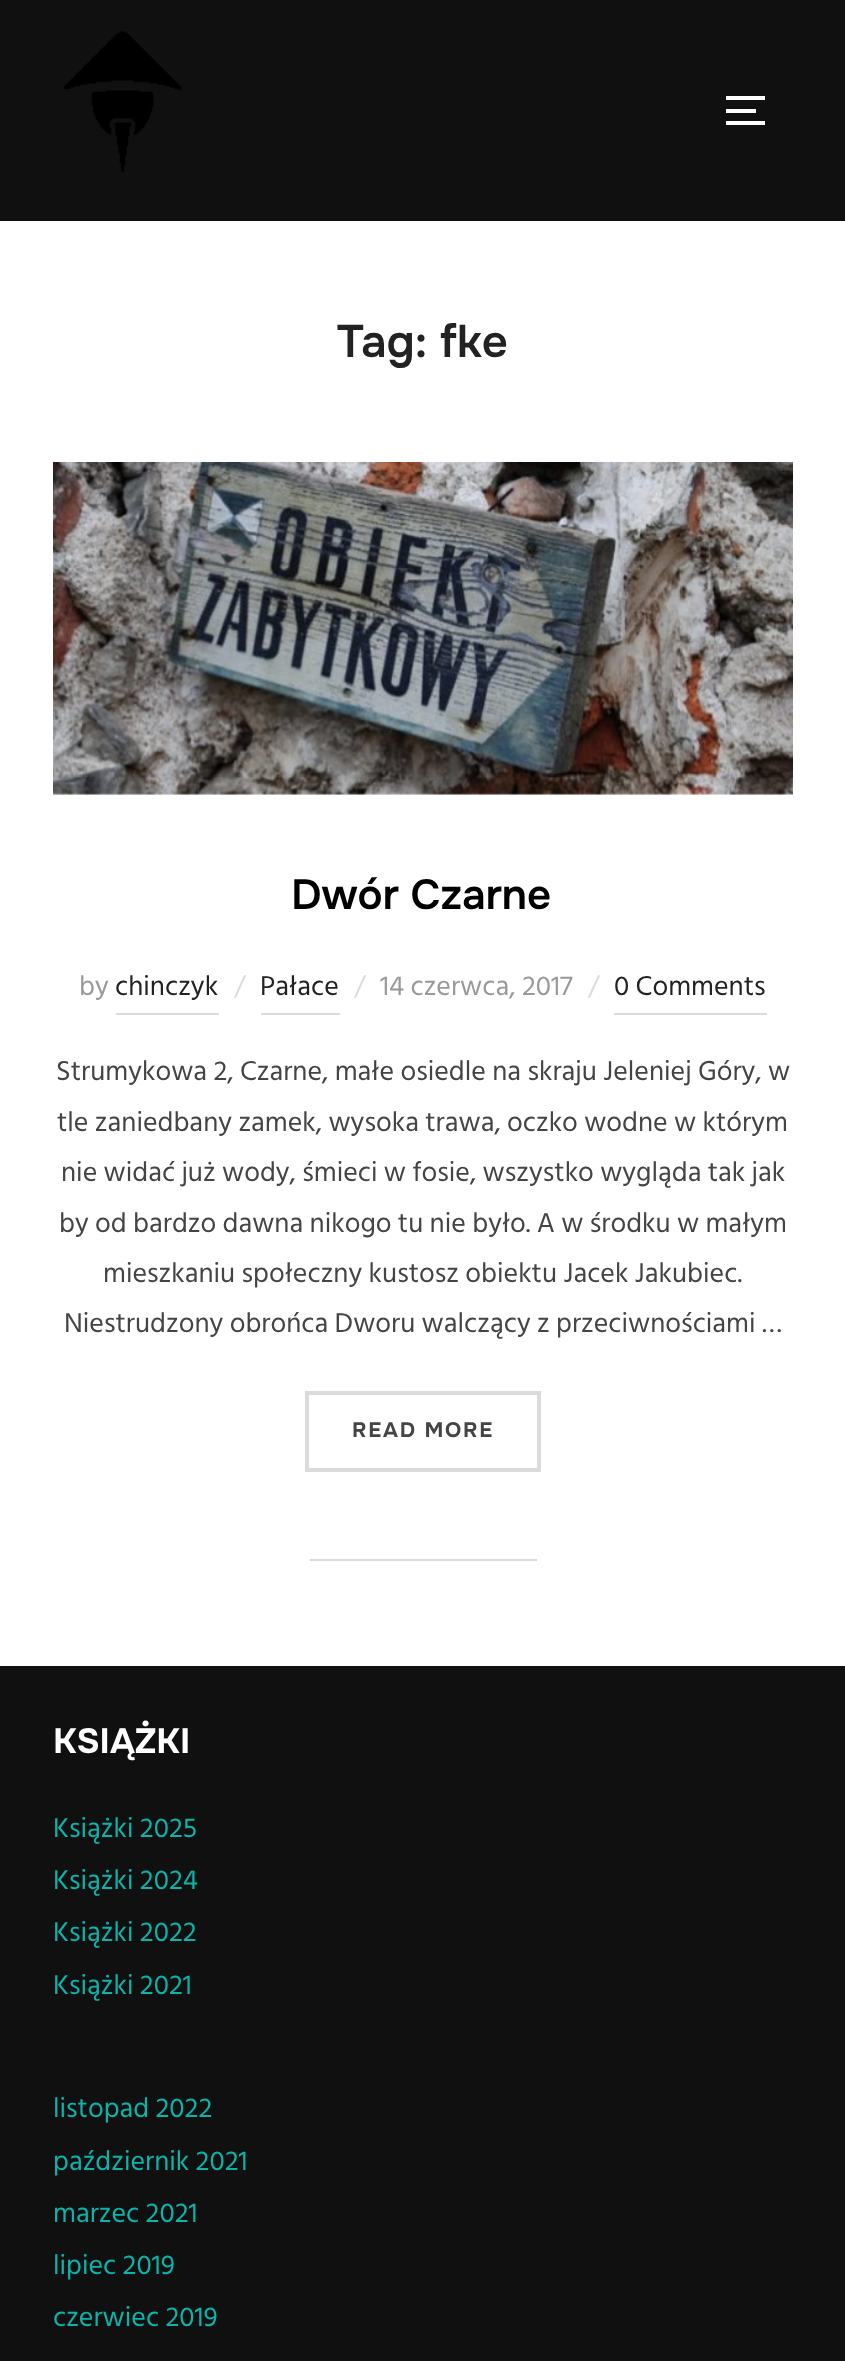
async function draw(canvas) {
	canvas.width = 845;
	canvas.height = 2361;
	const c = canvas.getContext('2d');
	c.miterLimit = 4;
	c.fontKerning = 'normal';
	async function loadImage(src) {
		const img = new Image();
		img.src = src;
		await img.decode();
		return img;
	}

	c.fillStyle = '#fff';
	c.fillRect(0, 0, 845, 2361);
	c.fillStyle = '#101010';
	c.fillRect(0, 0, 845, 221);
	c.drawImage(await loadImage('img1.png'), 63, 31, 119, 141);
	for (const [x, y, w, h, color] of [
		[726, 96, 39, 4, '#fff'],
		[726, 109, 30, 4, '#fff'],
		[726, 121, 39, 4, '#fff'],
	]) {
		c.fillStyle = color;
		c.fillRect(x, y, w, h);
	}
	c.font = '600 45.5px Onest';
	c.fillStyle = '#222';
	c.fillText('Tag: fke', 337, 357);
	c.drawImage(await loadImage('img2.png'), 53, 462, 740, 333);
	c.font = '600 42px Onest';
	c.fillStyle = '#000';
	c.fillText('Dwór Czarne', 291, 909);
	c.font = '28px Hind Siliguri';
	c.fillStyle = '#999';
	c.fillText('by', 79, 995);
	c.fillStyle = '#222';
	c.fillText('chinczyk', 115, 995);
	c.fillStyle = '#dbdbdb';
	c.fillRect(116, 1013, 103, 2);
	c.fillStyle = '#dbdddd';
	c.fillText('/', 234, 995);
	c.fillStyle = '#222';
	c.fillText('Pałace', 260, 995);
	c.fillStyle = '#dbdbdb';
	c.fillRect(261, 1013, 79, 2);
	c.fillStyle = '#dbdddd';
	c.fillText('/', 354, 995);
	c.fillStyle = '#999';
	c.fillText('14 czerwca, 2017', 380, 995);
	c.fillStyle = '#dbdddd';
	c.fillText('/', 588, 995);
	c.fillStyle = '#222';
	c.fillText('0 Comments', 614, 995);
	c.fillStyle = '#dbdbdb';
	c.fillRect(614, 1013, 153, 2);
	c.fillStyle = '#444';
	for (const [text, x, y] of [
		['Strumykowa 2, Czarne, małe osiedle na skraju Jeleniej Góry, w', 56, 1080],
		['tle zaniedbany zamek, wysoka trawa, oczko wodne w którym', 57, 1131],
		['nie widać już wody, śmieci w fosie, wszystko wygląda tak jak', 61, 1181],
		['by od bardzo dawna nikogo tu nie było. A w środku w małym', 59, 1232],
		['mieszkaniu społeczny kustosz obiektu Jacek Jakubiec.', 103, 1282],
		['Niestrudzony obrońca Dworu walczący z przeciwnościami …', 64, 1332],
	]) {
		c.fillText(text, x, y);
	}
	c.strokeStyle = '#dbdbdb';
	c.lineWidth = 4;
	c.strokeRect(307, 1393, 232, 77);
	c.letterSpacing = '1.75px';
	c.font = 'bold 21px Onest';
	c.fillText('READ MORE', 352, 1437);
	c.fillStyle = '#dbdbdb';
	c.fillRect(310, 1559, 227, 2);
	c.fillStyle = '#101010';
	c.fillRect(0, 1666, 845, 695);
	c.letterSpacing = '0px';
	c.font = 'bold 35px Onest';
	c.fillStyle = '#fff';
	c.fillText('KSIĄŻKI', 53, 1753);
	c.font = '28px Hind Siliguri';
	c.fillStyle = '#0bb4aa';
	for (const [text, x, y] of [
		['Książki 2025', 53, 1837],
		['Książki 2024', 53, 1889],
		['Książki 2022', 53, 1941],
		['Książki 2021', 53, 1994],
		['listopad 2022', 53, 2117],
		['październik 2021', 53, 2170],
		['marzec 2021', 53, 2222],
		['lipiec 2019', 53, 2274],
		['czerwiec 2019', 53, 2326],
	]) {
		c.fillText(text, x, y);
	}
}

draw(document.querySelector('canvas'));
